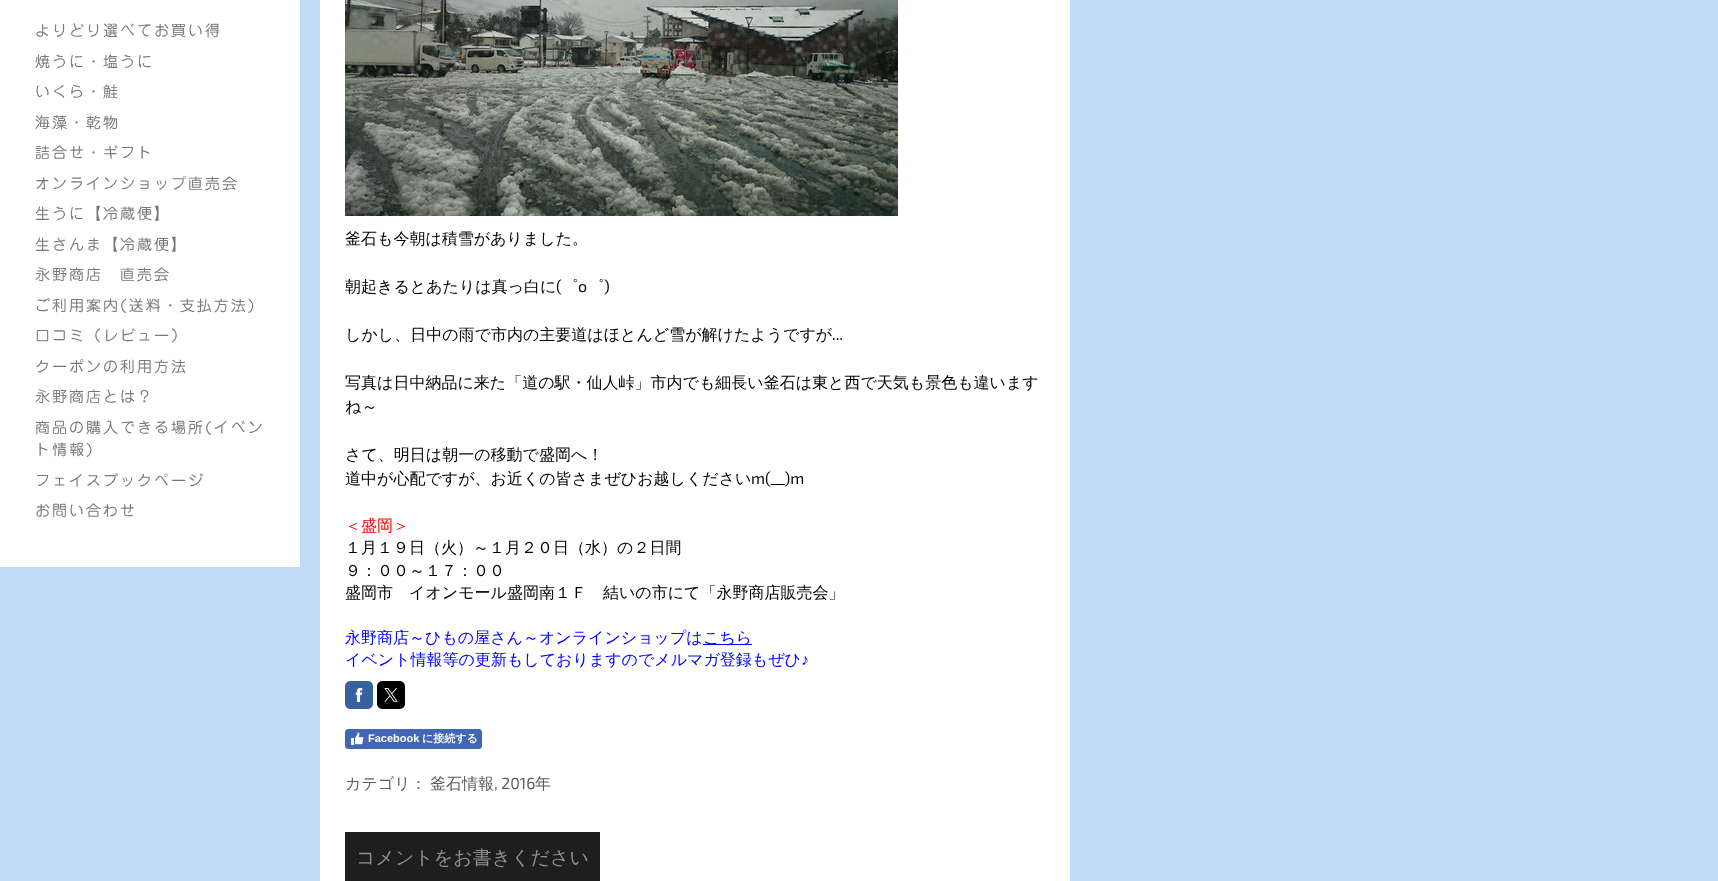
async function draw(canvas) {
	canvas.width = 1718;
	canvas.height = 881;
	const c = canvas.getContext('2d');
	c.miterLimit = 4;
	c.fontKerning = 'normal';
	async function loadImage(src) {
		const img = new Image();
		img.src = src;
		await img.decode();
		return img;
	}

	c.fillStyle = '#c0dcf7';
	c.fillRect(0, 0, 1718, 881);
	c.fillStyle = '#fff';
	c.fillRect(0, 0, 300, 567);
	c.letterSpacing = '2px';
	c.font = '15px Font';
	c.fillStyle = '#777';
	for (const [text, x, y] of [
		['よりどり選べてお買い得', 35, 36],
		['焼うに・塩うに', 35, 67],
		['いくら・鮭', 35, 97],
		['海藻・乾物', 35, 128],
		['詰合せ・ギフト', 35, 158],
		['オンラインショップ直売会', 35, 189],
		['生うに【冷蔵便】', 35, 219],
		['生さんま【冷蔵便】', 35, 250],
		['永野商店　直売会', 35, 280],
		['ご利用案内(送料・支払方法)', 35, 311],
		['口コミ（レビュー）', 35, 341],
		['クーポンの利用方法', 35, 372],
		['永野商店とは？', 35, 402],
		['商品の購入できる場所(イベン', 35, 433],
		['ト情報)', 35, 455],
		['フェイスブックページ', 35, 486],
		['お問い合わせ', 35, 516],
	]) {
		c.fillText(text, x, y);
	}
	c.fillStyle = '#fff';
	c.fillRect(320, 0, 750, 881);
	c.drawImage(await loadImage('img1.png'), 345, 0, 553, 216);
	c.letterSpacing = '0px';
	c.font = '500 16px WenQuanYi Zen Hei';
	c.fillStyle = '#000';
	c.fillText('釜石も今朝は積雪がありました。', 345, 244);
	c.fillText('朝起きるとあたりは真っ白に', 345, 292);
	c.font = '16px "Exo 2"';
	c.fillText('(', 556, 292);
	c.font = '500 16px WenQuanYi Zen Hei';
	c.fillText('゜', 562, 292);
	c.font = '16px "Exo 2"';
	c.fillText('o', 578, 292);
	c.font = '500 16px WenQuanYi Zen Hei';
	c.fillText('゜', 588, 292);
	c.font = '16px "Exo 2"';
	c.fillText(')', 604, 292);
	c.font = '500 16px WenQuanYi Zen Hei';
	c.fillText('しかし、日中の雨で市内の主要道はほとんど雪が解けたようですが', 345, 340);
	c.font = '16px "Exo 2"';
	c.fillText('...', 832, 340);
	c.font = '500 16px WenQuanYi Zen Hei';
	for (const [text, x, y] of [
		['写真は日中納品に来た「道の駅・仙人峠」市内でも細長い釜石は東と西で天気も景色も違います', 345, 388],
		['ね～', 345, 412],
		['さて、明日は朝一の移動で盛岡へ！', 345, 460],
		['道中が心配ですが、お近くの皆さまぜひお越しください', 345, 484],
	]) {
		c.fillText(text, x, y);
	}
	c.font = '16px "Exo 2"';
	c.fillText('m(__)m', 751, 484);
	c.font = '500 16px WenQuanYi Zen Hei';
	c.fillStyle = '#f00';
	c.fillText('＜盛岡＞', 345, 531);
	c.fillStyle = '#000';
	for (const [text, x, y] of [
		['１月１９日（火）～１月２０日（水）の２日間', 345, 553],
		['９：００～１７：００', 345, 576],
		['盛岡市　イオンモール盛岡南１Ｆ　結いの市にて「永野商店販売会」', 345, 598],
	]) {
		c.fillText(text, x, y);
	}
	c.fillStyle = '#00f';
	c.fillText('永野商店～ひもの屋さん～オンラインショップは', 345, 643);
	c.fillRect(703, 644, 49, 1);
	c.fillText('こちら', 703, 643);
	c.fillText('イベント情報等の更新もしておりますのでメルマガ登録もぜひ', 345, 665);
	c.font = '16px Liberation Sans';
	c.fillText('♪', 801, 665);
	c.drawImage(await loadImage('img2.png'), 345, 681, 28, 28);
	c.drawImage(await loadImage('img3.png'), 355, 688, 8, 14);
	c.drawImage(await loadImage('img4.png'), 377, 681, 28, 28);
	c.drawImage(await loadImage('img5.png'), 384, 688, 14, 14);
	c.fillStyle = '#4267b2';
	c.beginPath();
	c.roundRect(345.5, 729.5, 136, 19, 2.5);
	c.fill();
	c.strokeStyle = '#4267b2';
	c.stroke();
	c.drawImage(await loadImage('img6.png'), 351, 732, 13, 13);
	c.font = 'bold 11px Liberation Sans';
	c.fillStyle = '#fff';
	c.fillText('Facebook', 368, 742);
	c.font = 'bold 11px WenQuanYi Zen Hei';
	c.fillText('に接続する', 422, 742);
	c.font = '500 16px WenQuanYi Zen Hei';
	c.fillStyle = '#5d5d5d';
	c.fillText('カテゴリ：', 345, 789);
	c.fillText('釜石情報', 430, 789);
	c.font = '16px "Exo 2"';
	c.fillText(', 2016', 494, 789);
	c.font = '500 16px WenQuanYi Zen Hei';
	c.fillText('年', 535, 789);
	c.fillStyle = '#1e1e1e';
	c.fillRect(345, 832, 255, 49);
	c.font = '500 19px WenQuanYi Zen Hei';
	c.fillStyle = '#909090';
	c.fillText('コメントをお書きください', 356, 864);
}

draw(document.querySelector('canvas'));
